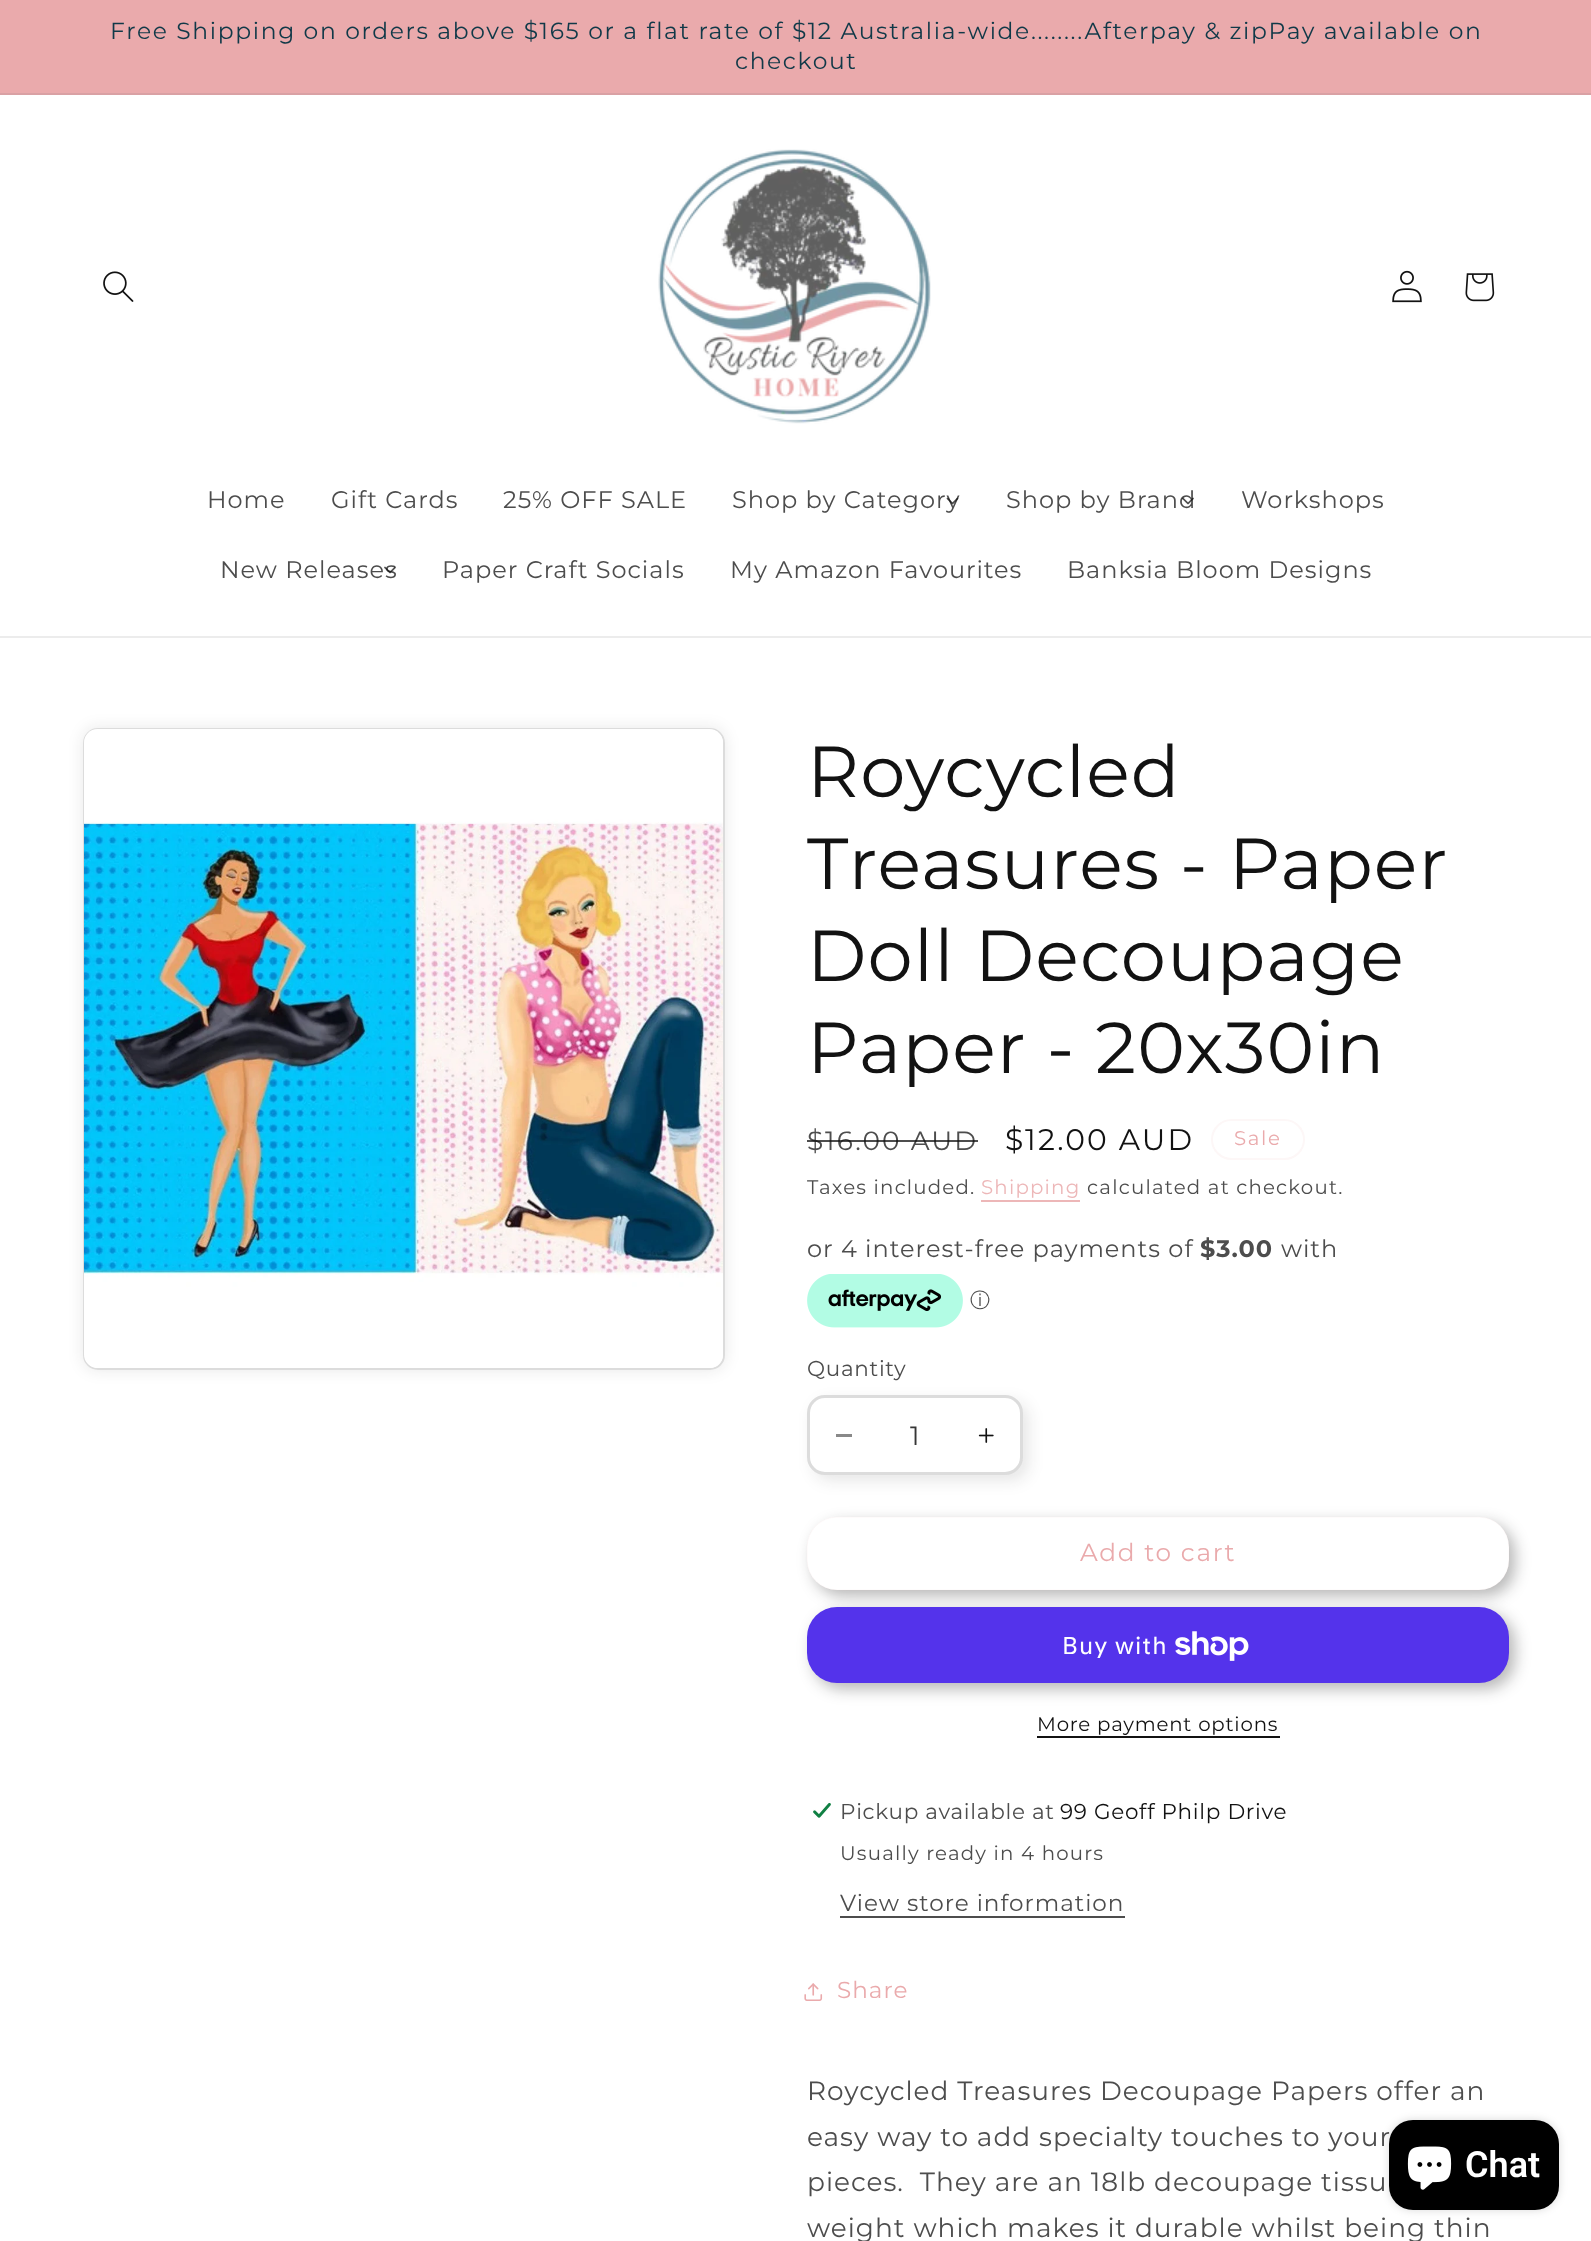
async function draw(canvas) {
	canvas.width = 1591;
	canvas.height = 2241;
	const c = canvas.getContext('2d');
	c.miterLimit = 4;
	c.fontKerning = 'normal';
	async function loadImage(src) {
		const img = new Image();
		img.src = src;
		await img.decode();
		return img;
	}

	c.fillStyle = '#fff';
	c.fillRect(0, 0, 1591, 2241);
	c.fillStyle = '#eaaaac';
	c.fillRect(0, 0, 1591, 93);
	c.fillStyle = '#d9a1a4';
	c.fillRect(0, 93, 1591, 2);
	c.letterSpacing = '1.65px';
	c.font = '23.4px Montserrat';
	c.fillStyle = '#103948';
	c.fillText('Free Shipping on orders above $165 or a flat rate of $12 Australia-wide........Afterpay & zipPay available on', 110, 39);
	c.fillText('checkout', 735, 69);
	c.fillStyle = '#ececec';
	c.fillRect(0, 636, 1591, 2);
	c.drawImage(await loadImage('img1.png'), 103, 271, 31, 31);
	c.drawImage(await loadImage('img2.png'), 658, 149, 273, 275);
	c.drawImage(await loadImage('img3.png'), 1392, 270, 30, 33);
	c.drawImage(await loadImage('img4.png'), 1465, 273, 30, 29);
	c.letterSpacing = '1px';
	c.font = '24px Montserrat';
	c.fillStyle = '#4d4d4d';
	for (const [text, x, y] of [
		['Home', 207, 508],
		['Gift Cards', 331, 508],
		['25% OFF SALE', 503, 508],
		['Shop by Category', 732, 508],
	]) {
		c.fillText(text, x, y);
	}
	c.drawImage(await loadImage('img5.png'), 946, 497, 13, 8);
	c.fillText('Shop by Brand', 1006, 508);
	c.drawImage(await loadImage('img6.png'), 1182, 497, 12, 8);
	c.fillText('Workshops', 1241, 508);
	c.fillText('New Releases', 220, 578);
	c.drawImage(await loadImage('img7.png'), 384, 566, 12, 8);
	for (const [text, x, y] of [
		['Paper Craft Socials', 442, 578],
		['My Amazon Favourites', 730, 578],
		['Banksia Bloom Designs', 1067, 578],
	]) {
		c.fillText(text, x, y);
	}
	c.fillStyle = '#1212121a';
	c.filter = 'blur(7.5px)';
	c.beginPath();
	c.roundRect(83, 728, 642, 642, 15);
	c.fill();
	c.filter = 'none';
	c.fillStyle = '#fff';
	c.beginPath();
	c.roundRect(83, 728, 642, 642, 15);
	c.fill();
	c.beginPath();
	c.roundRect(84, 729, 640, 640, 14);
	c.strokeStyle = '#12121226';
	c.lineWidth = 2;
	c.stroke();
	c.drawImage(await loadImage('img8.png'), 84, 729, 639, 639);
	c.letterSpacing = '1.1px';
	c.font = '72px Montserrat';
	c.fillStyle = '#121212';
	for (const [text, x, y] of [
		['Roycycled', 807, 797],
		['Treasures - Paper', 807, 889],
		['Doll Decoupage', 807, 981],
		['Paper - 20x30in', 807, 1073],
	]) {
		c.fillText(text, x, y);
	}
	c.letterSpacing = '2.1px';
	c.font = '26.4px Montserrat';
	c.fillStyle = '#4d4d4d';
	c.fillText('$16.00 AUD', 807, 1150);
	c.fillStyle = '#121212bf';
	c.fillRect(807, 1140, 171, 2);
	c.font = '29.75px Montserrat';
	c.fillStyle = '#121212';
	c.fillText('$12.00 AUD', 1005, 1150);
	c.beginPath();
	c.roundRect(1212, 1120, 92, 39, 19.5);
	c.strokeStyle = '#fdf7f7';
	c.stroke();
	c.letterSpacing = '1.65px';
	c.font = '19.75px Montserrat';
	c.fillStyle = '#eaaaac';
	c.fillText('Sale', 1234, 1145);
	c.letterSpacing = '1.2px';
	c.fillStyle = '#4d4d4d';
	c.fillText('Taxes included.', 807, 1194);
	c.fillStyle = '#edb7b8';
	c.fillText('Shipping', 981, 1194);
	c.fillRect(981, 1200, 99, 2);
	c.fillStyle = '#4d4d4d';
	c.fillText('calculated at checkout.', 1087, 1194);
	c.letterSpacing = '1px';
	c.font = '24px Montserrat';
	c.fillText('or 4 interest-free payments of', 807, 1257);
	c.font = 'bold 24px Montserrat';
	c.fillText('$3.00', 1200, 1257);
	c.font = '24px Montserrat';
	c.fillText('with', 1281, 1257);
	c.drawImage(await loadImage('img9.png'), 807, 1274, 156, 54);
	c.letterSpacing = '0px';
	c.font = '500 20px WenQuanYi Zen Hei';
	c.fillText('ⓘ', 970, 1307);
	c.fillStyle = '#1212121a';
	c.filter = 'blur(7.5px)';
	c.beginPath();
	c.roundRect(813, 1401, 216, 80, 18);
	c.fill();
	c.filter = 'none';
	c.letterSpacing = '0.7px';
	c.font = '21.5px Montserrat';
	c.fillStyle = '#4d4d4d';
	c.fillText('Quantity', 807, 1376);
	c.fillStyle = '#fff';
	c.beginPath();
	c.roundRect(807, 1395, 216, 80, 18);
	c.fill();
	c.fillStyle = '#898989';
	c.fillRect(836, 1434, 16, 3);
	c.drawImage(await loadImage('img10.png'), 978, 1428, 16, 15);
	c.beginPath();
	c.roundRect(808.5, 1396.5, 213, 77, 16.5);
	c.strokeStyle = '#12121226';
	c.lineWidth = 3;
	c.stroke();
	c.letterSpacing = '0px';
	c.font = '26.4px Montserrat';
	c.fillStyle = '#363636';
	c.fillText('1', 910, 1445);
	c.fillStyle = '#1212124d';
	c.filter = 'blur(7.5px)';
	c.beginPath();
	c.roundRect(813, 1523, 702, 73, 30);
	c.fill();
	c.filter = 'none';
	c.filter = 'blur(7.5px)';
	c.beginPath();
	c.roundRect(813, 1613, 702, 76, 30);
	c.fill();
	c.filter = 'none';
	c.fillStyle = '#fff';
	c.beginPath();
	c.roundRect(807, 1517, 702, 73, 30);
	c.fill();
	c.beginPath();
	c.roundRect(807.2, 1517.2, 701.6, 72.6, 29.8);
	c.strokeStyle = '#eaaaac26';
	c.lineWidth = 0.4;
	c.stroke();
	c.letterSpacing = '1.65px';
	c.font = '24.75px Montserrat';
	c.fillStyle = '#eaaaac';
	c.fillText('Add to cart', 1080, 1561);
	c.fillStyle = '#5433eb';
	c.beginPath();
	c.roundRect(807, 1607, 702, 76, 30);
	c.fill();
	c.letterSpacing = '1px';
	c.font = '24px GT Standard';
	c.fillStyle = '#fff';
	c.fillText('Buy with', 1062, 1654);
	c.drawImage(await loadImage('img11.png'), 1175, 1631, 74, 30);
	c.letterSpacing = '0.8px';
	c.font = '19.75px Montserrat';
	c.fillStyle = '#121212';
	c.fillText('More payment options', 1037, 1731);
	c.fillRect(1037, 1736, 243, 2);
	c.drawImage(await loadImage('img12.png'), 813, 1802, 18, 16);
	c.letterSpacing = '0.7px';
	c.font = '21.5px Montserrat';
	c.fillStyle = '#4d4d4d';
	c.fillText('Pickup available at', 840, 1819);
	c.fillStyle = '#121212';
	c.fillText('99 Geoff Philp Drive', 1060, 1819);
	c.letterSpacing = '1.2px';
	c.font = '19.75px Montserrat';
	c.fillStyle = '#4d4d4d';
	c.fillText('Usually ready in 4 hours', 840, 1860);
	c.letterSpacing = '1px';
	c.font = '23.1px Montserrat';
	c.fillText('View store information', 840, 1911);
	c.fillRect(840, 1916, 285, 2);
	c.drawImage(await loadImage('img13.png'), 804, 1983, 19, 18);
	c.fillStyle = '#eaaaac';
	c.fillText('Share', 837, 1998);
	c.font = '26.4px Montserrat';
	c.fillStyle = '#4d4d4d';
	for (const [text, x, y] of [
		['Roycycled Treasures Decoupage Papers offer an', 807, 2100],
		['easy way to add specialty touches to your', 807, 2146],
		['pieces.  They are an 18lb decoupage tissu', 807, 2191],
		['weight which makes it durable whilst being thin', 807, 2237],
	]) {
		c.fillText(text, x, y);
	}
	c.fillStyle = '#00000026';
	c.filter = 'blur(4px)';
	c.beginPath();
	c.roundRect(1389, 2120, 170, 90, 24);
	c.fill();
	c.filter = 'none';
	c.fillStyle = '#000';
	c.beginPath();
	c.roundRect(1389, 2120, 170, 90, 24);
	c.fill();
	c.drawImage(await loadImage('img14.png'), 1407, 2146, 45, 44);
	c.letterSpacing = '0px';
	c.font = '600 36px Roboto';
	c.fillStyle = '#fff';
	c.fillText('Chat', 1465, 2177);
}

draw(document.querySelector('canvas'));
